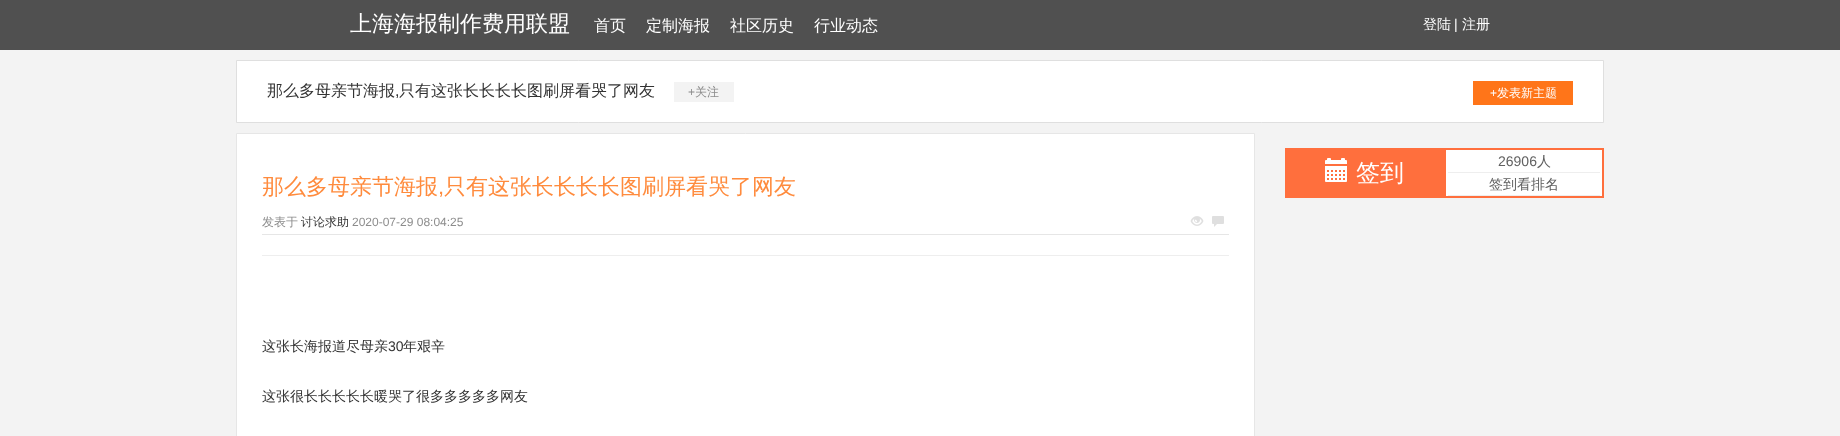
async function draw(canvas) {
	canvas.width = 1840;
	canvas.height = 436;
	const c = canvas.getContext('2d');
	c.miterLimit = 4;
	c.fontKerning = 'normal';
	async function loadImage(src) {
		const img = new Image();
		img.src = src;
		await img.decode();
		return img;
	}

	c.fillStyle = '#f3f3f3';
	c.fillRect(0, 0, 1840, 436);
	c.fillStyle = '#505050';
	c.fillRect(0, 0, 1840, 50);
	c.font = '500 22px WenQuanYi Zen Hei';
	c.fillStyle = '#fff';
	c.fillText('上海海报制作费用联盟', 350, 31);
	c.font = '500 16px WenQuanYi Zen Hei';
	for (const [text, x, y] of [
		['首页', 594, 31],
		['定制海报', 646, 31],
		['社区历史', 730, 31],
		['行业动态', 814, 31],
	]) {
		c.fillText(text, x, y);
	}
	c.font = '500 14px WenQuanYi Zen Hei';
	c.fillText('登陆', 1423, 29);
	c.font = '14px Liberation Sans';
	c.fillText('|', 1454, 29);
	c.font = '500 14px WenQuanYi Zen Hei';
	c.fillText('注册', 1462, 29);
	c.beginPath();
	c.rect(236.5, 60.5, 1367, 62);
	c.fill();
	c.strokeStyle = '#dfdfdf';
	c.stroke();
	c.font = '500 16px WenQuanYi Zen Hei';
	c.fillStyle = '#333';
	c.fillText('那么多母亲节海报', 267, 96);
	c.font = '16px Liberation Sans';
	c.fillText(',', 395, 96);
	c.font = '500 16px WenQuanYi Zen Hei';
	c.fillText('只有这张长长长长图刷屏看哭了网友', 399, 96);
	c.fillStyle = '#f3f3f3';
	c.fillRect(674, 82, 60, 20);
	c.font = '12px Liberation Sans';
	c.fillStyle = '#8c8c8c';
	c.fillText('+', 688, 96);
	c.font = '500 12px WenQuanYi Zen Hei';
	c.fillText('关注', 695, 96);
	c.fillStyle = '#ff7519';
	c.fillRect(1473, 81, 100, 24);
	c.font = '12px Liberation Sans';
	c.fillStyle = '#fff';
	c.fillText('+', 1490, 97);
	c.font = '500 12px WenQuanYi Zen Hei';
	c.fillText('发表新主题', 1497, 97);
	c.beginPath();
	c.rect(236.5, 133.5, 1018, 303);
	c.fill();
	c.strokeStyle = '#e6e6e6';
	c.stroke();
	c.font = '500 22px WenQuanYi Zen Hei';
	c.fillStyle = '#ff8b3d';
	c.fillText('那么多母亲节海报', 262, 194);
	c.font = '22px Liberation Sans';
	c.fillText(',', 438, 194);
	c.font = '500 22px WenQuanYi Zen Hei';
	c.fillText('只有这张长长长长图刷屏看哭了网友', 444, 194);
	c.fillStyle = '#e6e6e6';
	c.fillRect(262, 234, 967, 1);
	c.font = '500 12px WenQuanYi Zen Hei';
	c.fillStyle = '#8c8c8c';
	c.fillText('发表于', 262, 226);
	c.fillStyle = '#333';
	c.fillText('讨论求助', 301, 226);
	c.font = '12px Liberation Sans';
	c.fillStyle = '#8c8c8c';
	c.fillText('2020-07-29 08:04:25', 352, 226);
	c.drawImage(await loadImage('img1.png'), 1190, 216, 14, 10);
	c.drawImage(await loadImage('img2.png'), 1212, 216, 12, 11);
	c.fillStyle = '#eee';
	c.fillRect(262, 255, 967, 1);
	c.font = '500 14px WenQuanYi Zen Hei';
	c.fillStyle = '#333';
	c.fillText('这张长海报道尽母亲', 262, 351);
	c.font = '14px Liberation Sans';
	c.fillText('30', 388, 351);
	c.font = '500 14px WenQuanYi Zen Hei';
	c.fillText('年艰辛', 403, 351);
	c.fillText('这张很长长长长长暖哭了很多多多多多网友', 262, 401);
	c.fillStyle = '#ff6f3d';
	c.fillRect(1285, 148, 159, 50);
	c.drawImage(await loadImage('img3.png'), 1325, 158, 22, 24);
	c.font = '500 24px WenQuanYi Zen Hei';
	c.fillStyle = '#fff';
	c.fillText('签到', 1356, 181);
	c.beginPath();
	c.rect(1445, 149, 158, 48);
	c.fill();
	c.strokeStyle = '#ff6f3d';
	c.lineWidth = 2;
	c.stroke();
	c.fillStyle = '#eee';
	c.fillRect(1448, 172, 152, 1);
	c.font = '14px Liberation Sans';
	c.fillStyle = '#606060';
	c.fillText('26906', 1498, 166);
	c.font = '500 14px WenQuanYi Zen Hei';
	c.fillText('人', 1537, 166);
	c.fillStyle = '#eee';
	c.fillRect(1448, 195, 152, 1);
	c.fillStyle = '#606060';
	c.fillText('签到看排名', 1489, 189);
}

draw(document.querySelector('canvas'));
